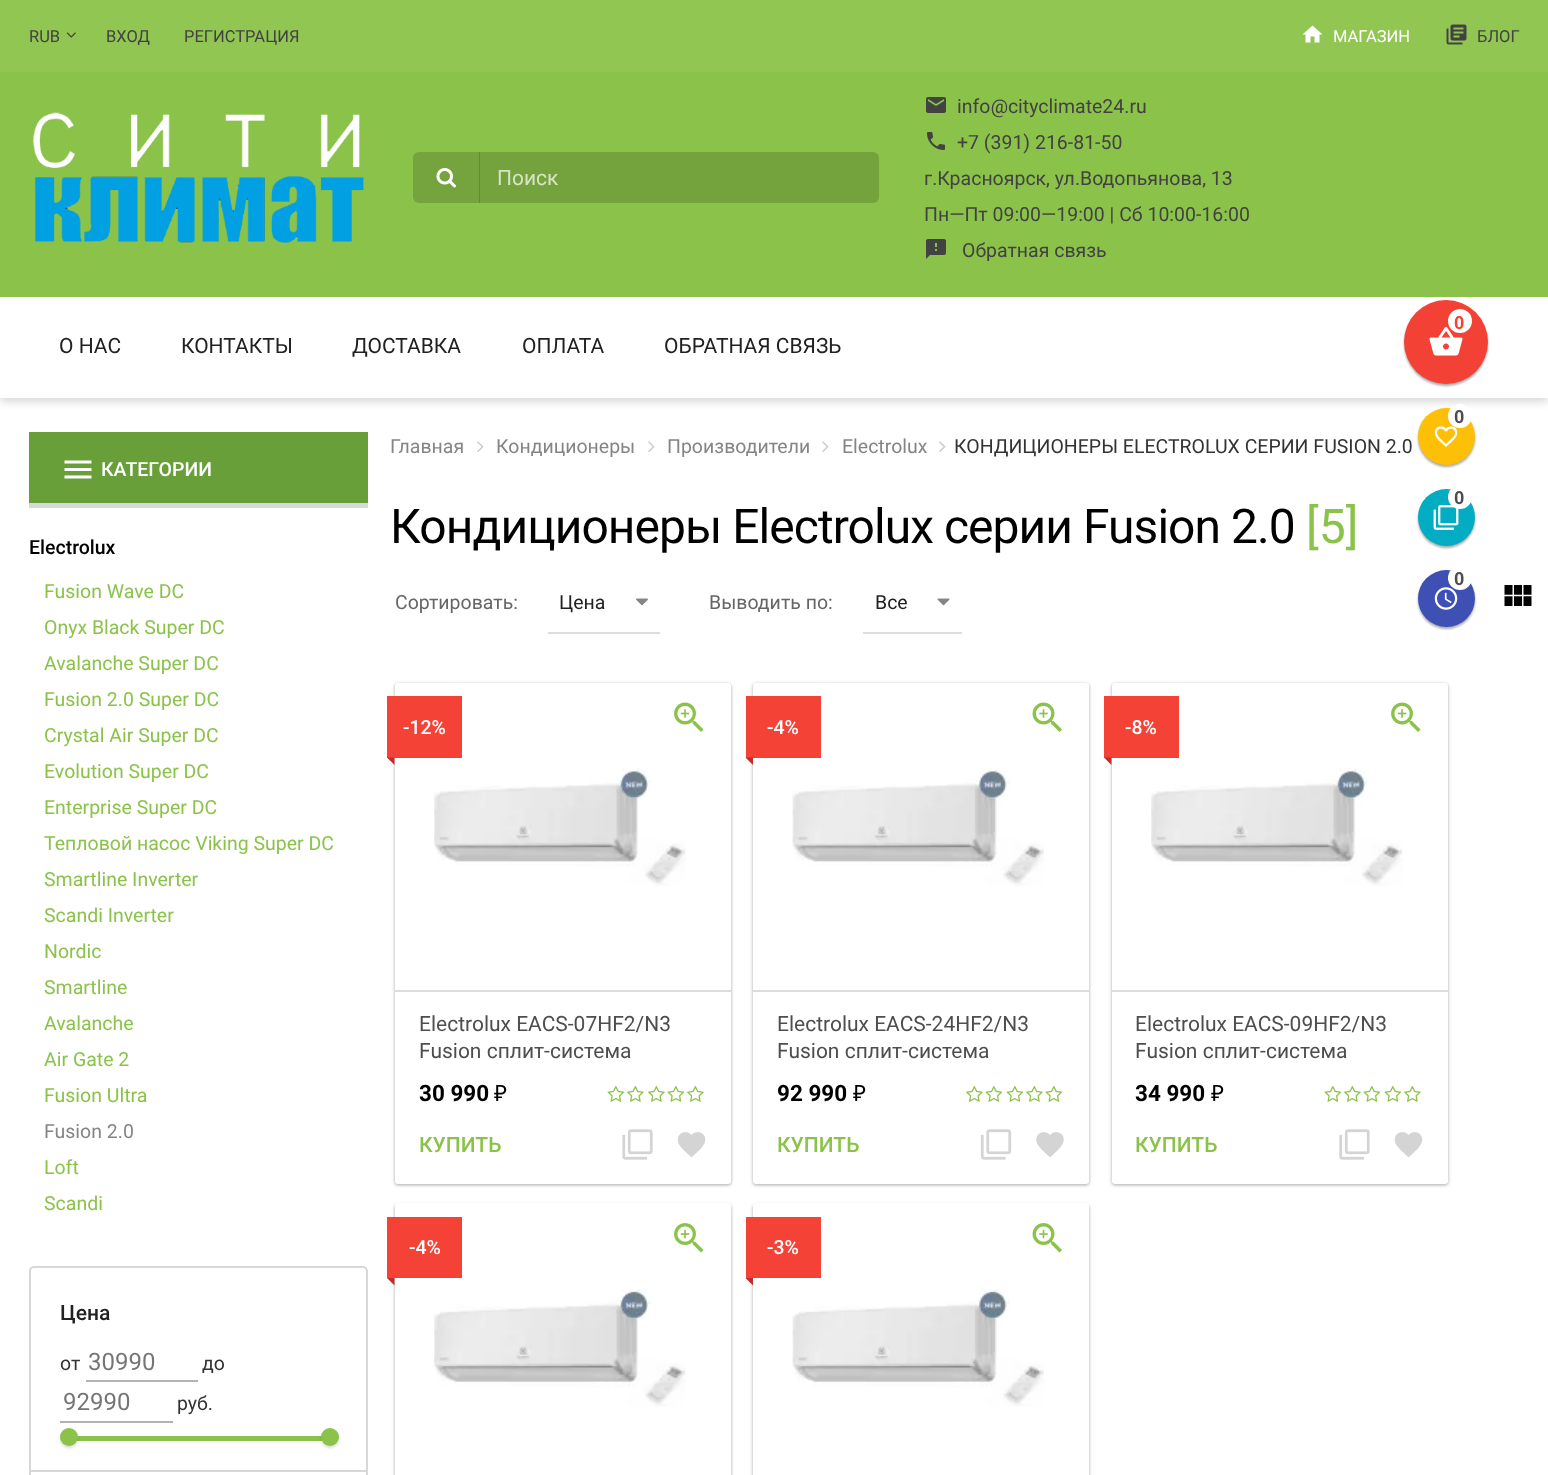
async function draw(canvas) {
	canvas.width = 1548;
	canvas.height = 1475;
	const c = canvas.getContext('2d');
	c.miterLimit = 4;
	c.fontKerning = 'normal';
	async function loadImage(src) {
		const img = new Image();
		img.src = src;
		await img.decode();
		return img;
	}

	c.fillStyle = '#fff';
	c.fillRect(0, 0, 1548, 1475);
	c.fillStyle = '#00000026';
	c.filter = 'blur(4px)';
	c.beginPath();
	c.rect(0, 5, 1548, 397);
	c.fill();
	c.filter = 'none';
	c.fillStyle = '#8bc34a';
	c.fillRect(0, 72, 1548, 225);
	c.fillStyle = '#91c653';
	c.fillRect(0, 0, 1548, 72);
	c.font = '16.5px Roboto';
	c.fillStyle = '#424242';
	c.fillText('RUB', 29, 42);
	c.drawImage(await loadImage('img1.png'), 66, 32, 10, 6);
	c.fillText('ВХОД', 106, 42);
	c.fillText('РЕГИСТРАЦИЯ', 184, 42);
	c.drawImage(await loadImage('img2.png'), 1302, 25, 21, 18);
	c.fillStyle = '#fff';
	c.fillText('МАГАЗИН', 1333, 42);
	c.drawImage(await loadImage('img3.png'), 1446, 24, 21, 21);
	c.fillStyle = '#424242';
	c.fillText('БЛОГ', 1477, 42);
	c.drawImage(await loadImage('img4.png'), 33, 112, 331, 131);
	c.fillStyle = '#75a43e';
	c.beginPath();
	c.roundRect(413, 152, 67, 51, [6, 0, 0, 6]);
	c.fill();
	c.drawImage(await loadImage('img5.png'), 436, 168, 20, 20);
	c.fillStyle = '#00000029';
	c.beginPath();
	c.roundRect(479, 152, 400, 51, [0, 6, 6, 0]);
	c.fill();
	c.font = '21px Roboto';
	c.fillStyle = '#d6e4c5';
	c.fillText('Поиск', 497, 185);
	c.drawImage(await loadImage('img6.png'), 926, 97, 20, 16);
	c.font = '19.5px Roboto';
	c.fillStyle = '#424242';
	c.fillText('info@cityclimate24.ru', 957, 113);
	c.drawImage(await loadImage('img7.png'), 927, 132, 18, 18);
	for (const [text, x, y] of [
		['+7 (391) 216-81-50', 957, 149],
		['г.Красноярск, ул.Водопьянова, 13', 924, 185],
		['Пн—Пт 09:00—19:00 | Сб 10:00-16:00', 924, 221],
	]) {
		c.fillText(text, x, y);
	}
	c.drawImage(await loadImage('img8.png'), 926, 239, 20, 20);
	c.fillText('Обратная связь', 962, 257);
	c.fillStyle = '#fff';
	c.fillRect(0, 297, 1548, 101);
	c.font = '21px Roboto';
	c.fillStyle = '#212121';
	for (const [text, x, y] of [
		['О НАС', 59, 353],
		['КОНТАКТЫ', 181, 353],
		['ДОСТАВКА', 352, 353],
		['ОПЛАТА', 522, 353],
		['ОБРАТНАЯ СВЯЗЬ', 664, 353],
	]) {
		c.fillText(text, x, y);
	}
	c.fillStyle = '#0000003d';
	c.filter = 'blur(1px)';
	c.beginPath();
	c.roundRect(1404, 302, 84, 84, 42);
	c.fill();
	c.filter = 'none';
	c.fillStyle = '#0000001f';
	c.filter = 'blur(1px)';
	c.beginPath();
	c.roundRect(1404, 302, 84, 84, 42);
	c.fill();
	c.filter = 'none';
	c.fillStyle = '#f34235';
	c.beginPath();
	c.arc(1446, 342, 42, 0, 2 * Math.PI);
	c.fill();
	c.drawImage(await loadImage('img9.png'), 1429, 327, 34, 29);
	c.fillStyle = '#fff';
	c.beginPath();
	c.arc(1460, 321, 12, 0, 2 * Math.PI);
	c.fill();
	c.font = 'bold 18px Roboto';
	c.fillStyle = '#f34235';
	c.fillText('0', 1454, 329);
	c.fillStyle = '#0000003d';
	c.filter = 'blur(1px)';
	c.beginPath();
	c.roundRect(1418, 410, 57, 57, 28.5);
	c.fill();
	c.filter = 'none';
	c.fillStyle = '#0000001f';
	c.filter = 'blur(1px)';
	c.beginPath();
	c.roundRect(1418, 410, 57, 57, 28.5);
	c.fill();
	c.filter = 'none';
	c.fillStyle = '#fdc006';
	c.beginPath();
	c.arc(1446.5, 436.5, 28.5, 0, 2 * Math.PI);
	c.fill();
	c.drawImage(await loadImage('img10.png'), 1434, 426, 24, 21);
	c.fillStyle = '#fff';
	c.beginPath();
	c.arc(1460, 416, 12, 0, 2 * Math.PI);
	c.fill();
	c.fillStyle = '#4e4e4e';
	c.fillText('0', 1454, 423);
	c.fillStyle = '#0000003d';
	c.filter = 'blur(1px)';
	c.beginPath();
	c.roundRect(1418, 491, 57, 57, 28.5);
	c.fill();
	c.filter = 'none';
	c.fillStyle = '#0000001f';
	c.filter = 'blur(1px)';
	c.beginPath();
	c.roundRect(1418, 491, 57, 57, 28.5);
	c.fill();
	c.filter = 'none';
	c.fillStyle = '#02acc3';
	c.beginPath();
	c.arc(1446.5, 517.5, 28.5, 0, 2 * Math.PI);
	c.fill();
	c.drawImage(await loadImage('img11.png'), 1433, 505, 26, 25);
	c.fillStyle = '#fff';
	c.beginPath();
	c.arc(1460, 497, 12, 0, 2 * Math.PI);
	c.fill();
	c.fillStyle = '#4e4e4e';
	c.fillText('0', 1454, 504);
	c.fillStyle = '#0000003d';
	c.filter = 'blur(1px)';
	c.beginPath();
	c.roundRect(1418, 572, 57, 57, 28.5);
	c.fill();
	c.filter = 'none';
	c.fillStyle = '#0000001f';
	c.filter = 'blur(1px)';
	c.beginPath();
	c.roundRect(1418, 572, 57, 57, 28.5);
	c.fill();
	c.filter = 'none';
	c.fillStyle = '#3e50b4';
	c.beginPath();
	c.arc(1446.5, 598.5, 28.5, 0, 2 * Math.PI);
	c.fill();
	c.drawImage(await loadImage('img12.png'), 1434, 587, 24, 23);
	c.fillStyle = '#fff';
	c.beginPath();
	c.arc(1460, 578, 12, 0, 2 * Math.PI);
	c.fill();
	c.fillStyle = '#4e4e4e';
	c.fillText('0', 1454, 585);
	c.fillStyle = '#d8d8d8';
	c.fillRect(29, 503, 339, 5);
	c.fillStyle = '#689f38';
	c.fillRect(29, 432, 339, 71);
	c.drawImage(await loadImage('img13.png'), 64, 460, 28, 19);
	c.font = '500 19.5px Roboto';
	c.fillStyle = '#fff';
	c.fillText('КАТЕГОРИИ', 101, 476);
	c.fillStyle = '#000';
	c.fillText('Electrolux', 29, 554);
	c.font = '19.5px Roboto';
	c.fillStyle = '#8bc34a';
	for (const [text, x, y] of [
		['Fusion Wave DC', 44, 598],
		['Onyx Black Super DC', 44, 634],
		['Avalanche Super DC', 44, 670],
		['Fusion 2.0 Super DC', 44, 706],
		['Crystal Air Super DC', 44, 742],
		['Evolution Super DC', 44, 778],
		['Enterprise Super DC', 44, 814],
		['Тепловой насос Viking Super DC', 44, 850],
		['Smartline Inverter', 44, 886],
		['Scandi Inverter', 44, 922],
		['Nordic', 44, 958],
		['Smartline', 44, 994],
		['Avalanche', 44, 1030],
		['Air Gate 2', 44, 1066],
		['Fusion Ultra', 44, 1102],
	]) {
		c.fillText(text, x, y);
	}
	c.fillStyle = '#858585';
	c.fillText('Fusion 2.0', 44, 1138);
	c.fillStyle = '#8bc34a';
	c.fillText('Loft', 44, 1174);
	c.fillText('Scandi', 44, 1210);
	c.beginPath();
	c.roundRect(30, 1267, 337, 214, 4);
	c.strokeStyle = '#d8d8d8';
	c.lineWidth = 2;
	c.stroke();
	c.fillStyle = '#d8d8d8';
	c.fillRect(30, 1470, 336, 2);
	c.font = '500 21px Roboto';
	c.fillStyle = '#212121';
	c.fillText('Цена', 60, 1320);
	c.font = '19.5px Roboto';
	c.fillStyle = '#333';
	c.fillText('от', 60, 1370);
	c.fillStyle = '#b3b3b3';
	c.fillRect(86, 1380, 112, 2);
	c.font = '24px Roboto';
	c.fillStyle = '#757575';
	c.fillText('30990', 88, 1370);
	c.font = '19.5px Roboto';
	c.fillStyle = '#333';
	c.fillText('до', 202, 1370);
	c.fillStyle = '#b3b3b3';
	c.fillRect(60, 1421, 113, 2);
	c.font = '24px Roboto';
	c.fillStyle = '#757575';
	c.fillText('92990', 63, 1410);
	c.font = '19.5px Roboto';
	c.fillStyle = '#333';
	c.fillText('руб.', 177, 1410);
	c.fillStyle = '#8bc34a';
	c.fillRect(77, 1436, 252, 5);
	c.fillStyle = '#00000026';
	c.filter = 'blur(1.5px)';
	c.beginPath();
	c.roundRect(60, 1430, 18, 18, 9);
	c.fill();
	c.filter = 'none';
	c.fillStyle = '#8bc34a';
	c.beginPath();
	c.arc(69, 1437, 9, 0, 2 * Math.PI);
	c.fill();
	c.fillStyle = '#00000026';
	c.filter = 'blur(1.5px)';
	c.beginPath();
	c.roundRect(321, 1430, 18, 18, 9);
	c.fill();
	c.filter = 'none';
	c.fillStyle = '#8bc34a';
	c.beginPath();
	c.arc(330, 1437, 9, 0, 2 * Math.PI);
	c.fill();
	c.fillStyle = '#858585';
	c.fillText('Главная', 390, 453);
	c.drawImage(await loadImage('img14.png'), 477, 441, 7, 11);
	c.fillText('Кондиционеры', 496, 453);
	c.drawImage(await loadImage('img14.png'), 648, 441, 7, 11);
	c.fillText('Производители', 667, 453);
	c.drawImage(await loadImage('img14.png'), 822, 441, 7, 11);
	c.fillText('Electrolux', 842, 453);
	c.drawImage(await loadImage('img14.png'), 939, 441, 7, 11);
	c.fillStyle = '#333';
	c.fillText('КОНДИЦИОНЕРЫ ELECTROLUX СЕРИИ FUSION 2.0', 954, 453);
	c.letterSpacing = '-0.95px';
	c.font = '48px Roboto';
	c.fillStyle = '#000';
	c.fillText('Кондиционеры Electrolux серии Fusion 2.0', 390, 543);
	c.letterSpacing = '0px';
	c.fillStyle = '#8bc34a';
	c.fillText('[5]', 1306, 543);
	c.font = '19.5px Roboto';
	c.fillStyle = '#666';
	c.fillText('Сортировать:', 395, 609);
	c.fillStyle = '#ddd';
	c.fillRect(548, 632, 112, 2);
	c.fillStyle = '#212121';
	c.fillText('Цена', 559, 609);
	c.drawImage(await loadImage('img15.png'), 636, 598, 12, 8);
	c.fillStyle = '#666';
	c.fillText('Выводить по:', 709, 609);
	c.fillStyle = '#ddd';
	c.fillRect(863, 632, 99, 2);
	c.fillStyle = '#212121';
	c.fillText('Все', 875, 609);
	c.drawImage(await loadImage('img16.png'), 937, 598, 13, 8);
	c.drawImage(await loadImage('img17.png'), 1504, 585, 28, 21);
	c.fillStyle = '#0000003d';
	c.filter = 'blur(1.5px)';
	c.beginPath();
	c.roundRect(395, 684, 336, 501, 3);
	c.fill();
	c.filter = 'none';
	c.fillStyle = '#0000001f';
	c.filter = 'blur(2px)';
	c.beginPath();
	c.roundRect(395, 684, 336, 501, 3);
	c.fill();
	c.filter = 'none';
	c.fillStyle = '#fff';
	c.beginPath();
	c.roundRect(395, 683, 336, 501, 3);
	c.fill();
	c.fillStyle = '#dcdcdc';
	c.fillRect(395, 990, 336, 2);
	c.fillStyle = '#f44336';
	c.fillRect(387, 696, 75, 62);
	c.font = '500 19.5px Roboto';
	c.fillStyle = '#fff';
	c.fillText('-12%', 403, 734);
	c.fillStyle = '#c12b2b';
	c.beginPath();
	c.moveTo(394.5, 757.5);
	c.lineTo(394.5, 765);
	c.lineTo(387, 757.5);
	c.closePath();
	c.fill();
	c.drawImage(await loadImage('img18.png'), 434, 768, 252, 118);
	c.font = '21px Roboto';
	c.fillStyle = '#4e4e4e';
	c.fillText('Electrolux EACS-07HF2/N3', 419, 1031);
	c.fillText('Fusion сплит-система', 419, 1058);
	c.drawImage(await loadImage('img19.png'), 674, 702, 30, 30);
	c.font = 'bold 22.5px Roboto';
	c.fillStyle = '#000';
	c.fillText('30 990', 419, 1101);
	c.font = '22.5px Noto Sans';
	c.fillText('₽', 494, 1101);
	c.drawImage(await loadImage('img20.png'), 607, 1085, 18, 17);
	c.drawImage(await loadImage('img21.png'), 627, 1085, 17, 17);
	c.drawImage(await loadImage('img21.png'), 648, 1085, 17, 17);
	c.drawImage(await loadImage('img20.png'), 667, 1085, 18, 17);
	c.drawImage(await loadImage('img21.png'), 687, 1085, 17, 17);
	c.font = '500 21px Roboto';
	c.fillStyle = '#8bc34a';
	c.fillText('КУПИТЬ', 419, 1152);
	c.drawImage(await loadImage('img22.png'), 622, 1129, 31, 31);
	c.drawImage(await loadImage('img23.png'), 677, 1132, 29, 26);
	c.fillStyle = '#0000003d';
	c.filter = 'blur(1.5px)';
	c.beginPath();
	c.roundRect(753, 684, 336, 501, 3);
	c.fill();
	c.filter = 'none';
	c.fillStyle = '#0000001f';
	c.filter = 'blur(2px)';
	c.beginPath();
	c.roundRect(753, 684, 336, 501, 3);
	c.fill();
	c.filter = 'none';
	c.fillStyle = '#fff';
	c.beginPath();
	c.roundRect(753, 683, 336, 501, 3);
	c.fill();
	c.fillStyle = '#dcdcdc';
	c.fillRect(753, 990, 336, 2);
	c.fillStyle = '#f44336';
	c.fillRect(746, 696, 75, 62);
	c.font = '500 19.5px Roboto';
	c.fillStyle = '#fff';
	c.fillText('-4%', 767, 734);
	c.fillStyle = '#c12b2b';
	c.beginPath();
	c.moveTo(753, 757.5);
	c.lineTo(753, 765);
	c.lineTo(745.5, 757.5);
	c.closePath();
	c.fill();
	c.drawImage(await loadImage('img24.png'), 792, 768, 252, 118);
	c.font = '21px Roboto';
	c.fillStyle = '#4e4e4e';
	c.fillText('Electrolux EACS-24HF2/N3', 777, 1031);
	c.fillText('Fusion сплит-система', 777, 1058);
	c.drawImage(await loadImage('img25.png'), 1032, 702, 30, 30);
	c.font = 'bold 22.5px Roboto';
	c.fillStyle = '#000';
	c.fillText('92 990', 777, 1101);
	c.font = '22.5px Noto Sans';
	c.fillText('₽', 853, 1101);
	c.drawImage(await loadImage('img21.png'), 966, 1085, 17, 17);
	c.drawImage(await loadImage('img20.png'), 985, 1085, 18, 17);
	c.drawImage(await loadImage('img20.png'), 1006, 1085, 18, 17);
	c.drawImage(await loadImage('img21.png'), 1026, 1085, 17, 17);
	c.drawImage(await loadImage('img20.png'), 1045, 1085, 18, 17);
	c.font = '500 21px Roboto';
	c.fillStyle = '#8bc34a';
	c.fillText('КУПИТЬ', 777, 1152);
	c.drawImage(await loadImage('img26.png'), 980, 1129, 32, 31);
	c.drawImage(await loadImage('img27.png'), 1036, 1132, 28, 25);
	c.fillStyle = '#0000003d';
	c.filter = 'blur(1.5px)';
	c.beginPath();
	c.roundRect(1112, 684, 336, 501, 3);
	c.fill();
	c.filter = 'none';
	c.fillStyle = '#0000001f';
	c.filter = 'blur(2px)';
	c.beginPath();
	c.roundRect(1112, 684, 336, 501, 3);
	c.fill();
	c.filter = 'none';
	c.fillStyle = '#fff';
	c.beginPath();
	c.roundRect(1112, 683, 336, 501, 3);
	c.fill();
	c.fillStyle = '#dcdcdc';
	c.fillRect(1112, 990, 336, 2);
	c.fillStyle = '#f44336';
	c.fillRect(1104, 696, 75, 62);
	c.font = '500 19.5px Roboto';
	c.fillStyle = '#fff';
	c.fillText('-8%', 1125, 734);
	c.fillStyle = '#c12b2b';
	c.beginPath();
	c.moveTo(1111.5, 757.5);
	c.lineTo(1111.5, 765);
	c.lineTo(1104, 757.5);
	c.closePath();
	c.fill();
	c.drawImage(await loadImage('img28.png'), 1151, 768, 252, 118);
	c.font = '21px Roboto';
	c.fillStyle = '#4e4e4e';
	c.fillText('Electrolux EACS-09HF2/N3', 1135, 1031);
	c.fillText('Fusion сплит-система', 1135, 1058);
	c.drawImage(await loadImage('img19.png'), 1391, 702, 30, 30);
	c.font = 'bold 22.5px Roboto';
	c.fillStyle = '#000';
	c.fillText('34 990', 1135, 1101);
	c.font = '22.5px Noto Sans';
	c.fillText('₽', 1211, 1101);
	c.drawImage(await loadImage('img20.png'), 1324, 1085, 18, 17);
	c.drawImage(await loadImage('img21.png'), 1344, 1085, 17, 17);
	c.drawImage(await loadImage('img20.png'), 1363, 1085, 18, 17);
	c.drawImage(await loadImage('img20.png'), 1384, 1085, 18, 17);
	c.drawImage(await loadImage('img21.png'), 1404, 1085, 17, 17);
	c.font = '500 21px Roboto';
	c.fillStyle = '#8bc34a';
	c.fillText('КУПИТЬ', 1135, 1152);
	c.drawImage(await loadImage('img22.png'), 1339, 1129, 31, 31);
	c.drawImage(await loadImage('img23.png'), 1394, 1132, 29, 26);
	c.fillStyle = '#0000003d';
	c.filter = 'blur(1.5px)';
	c.beginPath();
	c.roundRect(395, 1205, 336, 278, 3);
	c.fill();
	c.filter = 'none';
	c.fillStyle = '#0000001f';
	c.filter = 'blur(2px)';
	c.beginPath();
	c.roundRect(395, 1205, 336, 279, 3);
	c.fill();
	c.filter = 'none';
	c.fillStyle = '#fff';
	c.beginPath();
	c.roundRect(395, 1203, 336, 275, 3);
	c.fill();
	c.fillStyle = '#f44336';
	c.fillRect(387, 1217, 75, 61);
	c.font = '500 19.5px Roboto';
	c.fillStyle = '#fff';
	c.fillText('-4%', 409, 1254);
	c.fillStyle = '#c12b2b';
	c.beginPath();
	c.moveTo(394.5, 1278);
	c.lineTo(394.5, 1285.5);
	c.lineTo(387, 1278);
	c.closePath();
	c.fill();
	c.drawImage(await loadImage('img29.png'), 434, 1289, 252, 118);
	c.drawImage(await loadImage('img30.png'), 674, 1223, 30, 30);
	c.fillStyle = '#0000003d';
	c.filter = 'blur(1.5px)';
	c.beginPath();
	c.roundRect(753, 1205, 336, 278, 3);
	c.fill();
	c.filter = 'none';
	c.fillStyle = '#0000001f';
	c.filter = 'blur(2px)';
	c.beginPath();
	c.roundRect(753, 1205, 336, 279, 3);
	c.fill();
	c.filter = 'none';
	c.fillStyle = '#fff';
	c.beginPath();
	c.roundRect(753, 1203, 336, 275, 3);
	c.fill();
	c.fillStyle = '#f44336';
	c.fillRect(746, 1217, 75, 61);
	c.fillStyle = '#fff';
	c.fillText('-3%', 767, 1254);
	c.fillStyle = '#c12b2b';
	c.beginPath();
	c.moveTo(753, 1278);
	c.lineTo(753, 1285.5);
	c.lineTo(745.5, 1278);
	c.closePath();
	c.fill();
	c.drawImage(await loadImage('img31.png'), 792, 1289, 252, 118);
	c.drawImage(await loadImage('img32.png'), 1032, 1223, 30, 30);
}

draw(document.querySelector('canvas'));
